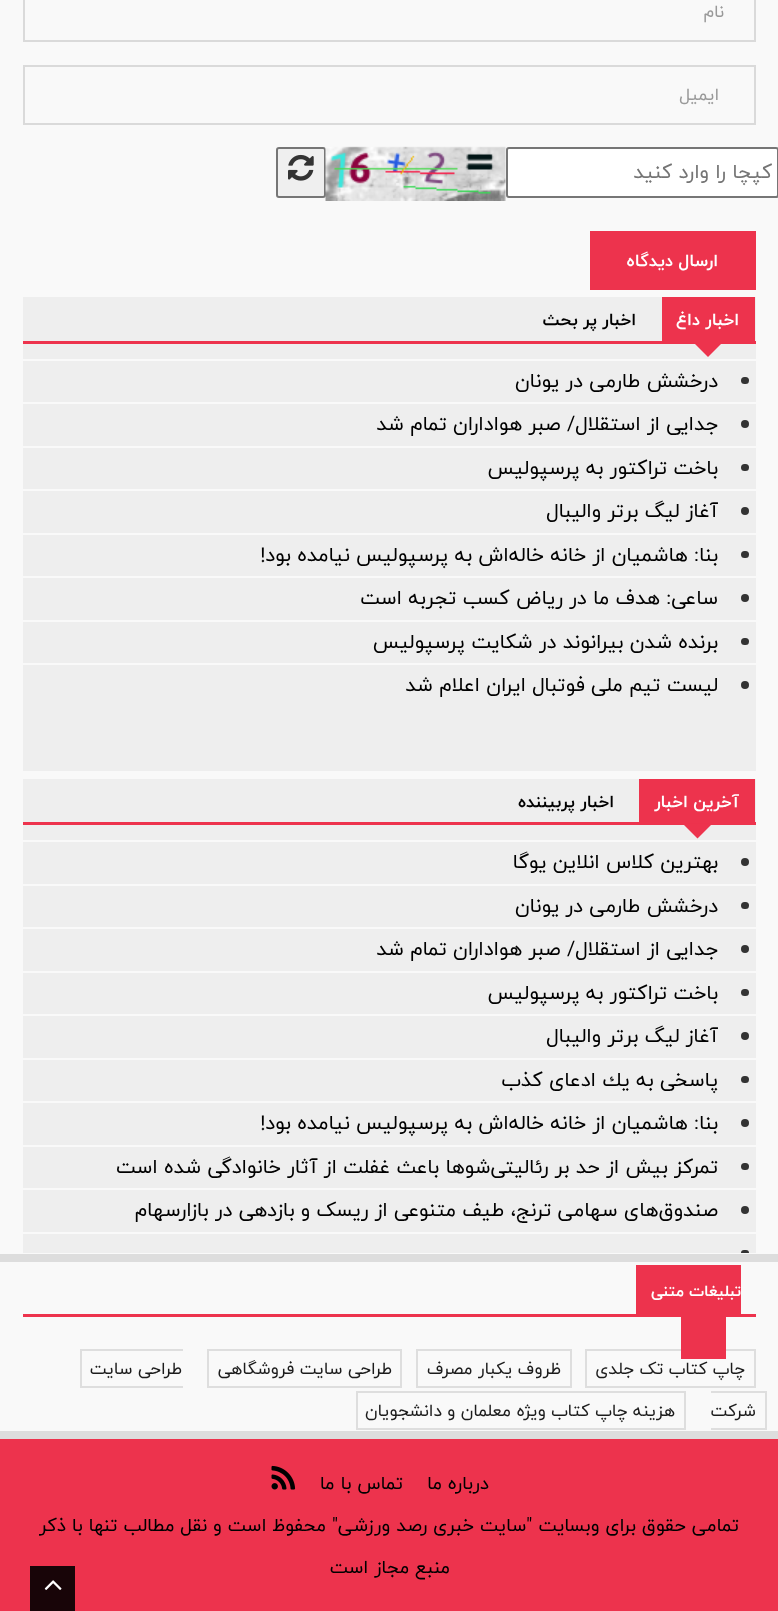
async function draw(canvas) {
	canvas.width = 778;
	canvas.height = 1611;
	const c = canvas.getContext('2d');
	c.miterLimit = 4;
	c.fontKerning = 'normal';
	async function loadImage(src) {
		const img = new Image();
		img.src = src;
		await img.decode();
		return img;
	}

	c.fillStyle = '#ddd';
	c.fillRect(0, 0, 778, 1611);
	c.fillStyle = '#f9f9f9';
	c.fillRect(0, 0, 778, 1254);
	c.strokeStyle = '#dadada';
	c.lineWidth = 2;
	c.strokeRect(24, -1, 731, 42);
	c.direction = 'rtl';
	c.font = '18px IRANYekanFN';
	c.fillStyle = '#999';
	c.fillText('نام', 724, 17);
	c.strokeRect(24, 66, 731, 58);
	c.fillText('ایمیل', 719, 100);
	c.fillStyle = '#fff';
	c.beginPath();
	c.roundRect(507, 148, 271, 49, 2);
	c.fill();
	c.strokeStyle = '#767676';
	c.stroke();
	c.font = '21px IRANYekanFN';
	c.fillStyle = '#757575';
	c.fillText('کپچا را وارد کنید', 772, 178);
	c.fillStyle = '#efefef';
	c.beginPath();
	c.roundRect(277, 148, 48, 49, 2);
	c.fill();
	c.stroke();
	c.drawImage(await loadImage('img1.png'), 325, 146, 181, 55);
	c.drawImage(await loadImage('img2.png'), 288, 154, 26, 27);
	c.fillStyle = '#ed334d';
	c.fillRect(590, 231, 166, 59);
	c.font = 'bold 18px IRANYekanFN';
	c.fillStyle = '#fff';
	c.fillText('ارسال دیدگاه', 718, 266);
	for (const [x, y, w, h, color] of [
		[23, 297, 733, 474, '#eee'],
		[23, 341, 733, 3, '#ed334d'],
		[662, 297, 93, 44, '#ed334d'],
	]) {
		c.fillStyle = color;
		c.fillRect(x, y, w, h);
	}
	c.fillStyle = '#fff';
	c.fillText('اخبار داغ', 739, 325);
	c.fillStyle = '#ed334d';
	c.beginPath();
	c.moveTo(693, 342);
	c.lineTo(723, 342);
	c.lineTo(708, 357);
	c.closePath();
	c.fill();
	c.fillStyle = '#000';
	c.fillText('اخبار پر بحث', 636, 325);
	c.fillStyle = '#f9f9f9';
	c.fillRect(23, 359, 733, 2);
	c.fillStyle = '#333';
	c.beginPath();
	c.roundRect(741, 377, 8, 7, 3.5);
	c.fill();
	c.font = '21px IRANYekanFN';
	c.fillStyle = '#000';
	c.fillText('درخشش طارمی در یونان', 718, 387);
	c.fillStyle = '#f9f9f9';
	c.fillRect(23, 402, 733, 2);
	c.fillStyle = '#333';
	c.beginPath();
	c.arc(745, 424, 4, 0, 2 * Math.PI);
	c.fill();
	c.fillStyle = '#000';
	c.fillText('جدایی از استقلال/ صبر هواداران تمام شد', 718, 430);
	c.fillStyle = '#f9f9f9';
	c.fillRect(23, 446, 733, 2);
	c.fillStyle = '#333';
	c.beginPath();
	c.roundRect(741, 464, 8, 7, 3.5);
	c.fill();
	c.fillStyle = '#000';
	c.fillText('باخت تراکتور به پرسپولیس', 718, 474);
	c.fillStyle = '#f9f9f9';
	c.fillRect(23, 489, 733, 2);
	c.fillStyle = '#333';
	c.beginPath();
	c.arc(745, 511, 4, 0, 2 * Math.PI);
	c.fill();
	c.fillStyle = '#000';
	c.fillText('آغاز لیگ برتر والیبال', 718, 517);
	c.fillStyle = '#f9f9f9';
	c.fillRect(23, 533, 733, 2);
	c.fillStyle = '#333';
	c.beginPath();
	c.roundRect(741, 551, 8, 7, 3.5);
	c.fill();
	c.fillStyle = '#000';
	c.fillText('بنا: هاشمیان از خانه خاله‌اش به پرسپولیس نیامده بود!', 718, 561);
	c.fillStyle = '#f9f9f9';
	c.fillRect(23, 576, 733, 2);
	c.fillStyle = '#333';
	c.beginPath();
	c.arc(745, 598, 4, 0, 2 * Math.PI);
	c.fill();
	c.fillStyle = '#000';
	c.fillText('ساعی: هدف ما در ریاض کسب تجربه است', 718, 604);
	c.fillStyle = '#f9f9f9';
	c.fillRect(23, 620, 733, 2);
	c.fillStyle = '#333';
	c.beginPath();
	c.roundRect(741, 638, 8, 7, 3.5);
	c.fill();
	c.fillStyle = '#000';
	c.fillText('برنده شدن بیرانوند در شکایت پرسپولیس', 718, 648);
	c.fillStyle = '#f9f9f9';
	c.fillRect(23, 663, 733, 2);
	c.fillStyle = '#333';
	c.beginPath();
	c.arc(745, 685, 4, 0, 2 * Math.PI);
	c.fill();
	c.fillStyle = '#000';
	c.fillText('لیست تیم ملی فوتبال ایران اعلام شد', 718, 691);
	for (const [x, y, w, h, color] of [
		[23, 779, 733, 474, '#eee'],
		[23, 822, 733, 3, '#ed334d'],
		[639, 779, 116, 43, '#ed334d'],
	]) {
		c.fillStyle = color;
		c.fillRect(x, y, w, h);
	}
	c.font = 'bold 18px IRANYekanFN';
	c.fillStyle = '#fff';
	c.fillText('آخرین اخبار', 739, 807);
	c.fillStyle = '#ed334d';
	c.beginPath();
	c.moveTo(682.5, 823.5);
	c.lineTo(712.5, 823.5);
	c.lineTo(697.5, 838.5);
	c.closePath();
	c.fill();
	c.fillStyle = '#000';
	c.fillText('اخبار پربیننده', 614, 807);
	c.fillStyle = '#f9f9f9';
	c.fillRect(23, 840, 733, 2);
	c.fillStyle = '#333';
	c.beginPath();
	c.arc(745, 862, 4, 0, 2 * Math.PI);
	c.fill();
	c.font = '21px IRANYekanFN';
	c.fillStyle = '#000';
	c.fillText('بهترین کلاس انلاین یوگا', 718, 868);
	c.fillStyle = '#f9f9f9';
	c.fillRect(23, 884, 733, 2);
	c.fillStyle = '#333';
	c.beginPath();
	c.roundRect(741, 902, 8, 7, 3.5);
	c.fill();
	c.fillStyle = '#000';
	c.fillText('درخشش طارمی در یونان', 718, 912);
	c.fillStyle = '#f9f9f9';
	c.fillRect(23, 927, 733, 2);
	c.fillStyle = '#333';
	c.beginPath();
	c.arc(745, 949, 4, 0, 2 * Math.PI);
	c.fill();
	c.fillStyle = '#000';
	c.fillText('جدایی از استقلال/ صبر هواداران تمام شد', 718, 955);
	c.fillStyle = '#f9f9f9';
	c.fillRect(23, 971, 733, 2);
	c.fillStyle = '#333';
	c.beginPath();
	c.roundRect(741, 989, 8, 7, 3.5);
	c.fill();
	c.fillStyle = '#000';
	c.fillText('باخت تراکتور به پرسپولیس', 718, 999);
	c.fillStyle = '#f9f9f9';
	c.fillRect(23, 1014, 733, 2);
	c.fillStyle = '#333';
	c.beginPath();
	c.arc(745, 1036, 4, 0, 2 * Math.PI);
	c.fill();
	c.fillStyle = '#000';
	c.fillText('آغاز لیگ برتر والیبال', 718, 1042);
	c.fillStyle = '#f9f9f9';
	c.fillRect(23, 1058, 733, 2);
	c.fillStyle = '#333';
	c.beginPath();
	c.roundRect(741, 1076, 8, 7, 3.5);
	c.fill();
	c.fillStyle = '#000';
	c.fillText('پاسخی به یك ادعای كذب', 718, 1086);
	c.fillStyle = '#f9f9f9';
	c.fillRect(23, 1101, 733, 2);
	c.fillStyle = '#333';
	c.beginPath();
	c.arc(745, 1123, 4, 0, 2 * Math.PI);
	c.fill();
	c.fillStyle = '#000';
	c.fillText('بنا: هاشمیان از خانه خاله‌اش به پرسپولیس نیامده بود!', 718, 1129);
	c.fillStyle = '#f9f9f9';
	c.fillRect(23, 1145, 733, 2);
	c.fillStyle = '#333';
	c.beginPath();
	c.roundRect(741, 1163, 8, 7, 3.5);
	c.fill();
	c.fillStyle = '#000';
	c.fillText('تمرکز بیش از حد بر رئالیتی‌شوها باعث غفلت از آثار خانوادگی شده است', 718, 1173);
	c.fillStyle = '#f9f9f9';
	c.fillRect(23, 1188, 733, 2);
	c.fillStyle = '#333';
	c.beginPath();
	c.arc(745, 1210, 4, 0, 2 * Math.PI);
	c.fill();
	c.fillStyle = '#000';
	c.fillText('صندوق‌های سهامی ترنج، طیف متنوعی از ریسک و بازدهی در بازار‌سهام', 718, 1216);
	c.fillStyle = '#f9f9f9';
	c.fillRect(23, 1232, 733, 2);
	c.fillStyle = '#333';
	c.beginPath();
	c.roundRect(741, 1250, 8, 3, [3.5, 3.5, 0, 0]);
	c.fill();
	for (const [x, y, w, h, color] of [
		[0, 1262, 778, 169, '#f9f9f9'],
		[23, 1314, 733, 3, '#ed334d'],
		[636, 1265, 105, 49, '#ed334d'],
	]) {
		c.fillStyle = color;
		c.fillRect(x, y, w, h);
	}
	c.font = 'bold 16.5px IRANYekanFN';
	c.fillStyle = '#fff';
	c.fillText('تبلیغات متنی', 741, 1296);
	c.strokeStyle = '#dedede';
	c.strokeRect(586, 1350, 169, 37);
	c.fillStyle = '#ed334d';
	c.fillRect(681, 1317, 45, 42);
	c.font = '18px IRANYekanFN';
	c.fillStyle = '#1c1c1c';
	c.fillText('چاپ کتاب تک جلدی', 745, 1374);
	c.strokeRect(417, 1350, 154, 37);
	c.fillText('ظروف یکبار مصرف', 561, 1374);
	c.strokeRect(208, 1350, 193, 37);
	c.fillText('طراحی سایت فروشگاهی', 392, 1374);
	c.fillText('طراحی سایت', 182, 1374);
	for (const [x, y, w, h, color] of [
		[80, 1349, 103, 2, '#dedede'],
		[80, 1386, 103, 2, '#dedede'],
		[80, 1349, 2, 39, '#dedede'],
	]) {
		c.fillStyle = color;
		c.fillRect(x, y, w, h);
	}
	c.fillStyle = '#1c1c1c';
	c.fillText('شرکت', 756, 1416);
	for (const [x, y, w, h, color] of [
		[711, 1391, 56, 2, '#dedede'],
		[765, 1391, 2, 39, '#dedede'],
		[711, 1428, 56, 2, '#dedede'],
	]) {
		c.fillStyle = color;
		c.fillRect(x, y, w, h);
	}
	c.strokeRect(357, 1392, 328, 37);
	c.fillStyle = '#1c1c1c';
	c.fillText('هزینه چاپ کتاب ویژه معلمان و دانشجویان', 675, 1416);
	c.fillStyle = '#ed334d';
	c.fillRect(0, 1439, 778, 172);
	c.font = '19.5px IRANYekanFN';
	c.fillStyle = '#000';
	c.fillText('درباره ما', 489, 1489);
	c.fillText('تماس با ما', 403, 1489);
	c.drawImage(await loadImage('img3.png'), 271, 1465, 25, 25);
	c.fillText('تمامی حقوق برای وبسایت "سایت خبری رصد ورزشی" محفوظ است و نقل مطالب تنها با ذکر', 739, 1531);
	c.fillText('منبع مجاز است', 450, 1573);
	c.fillStyle = '#180508';
	c.fillRect(30, 1566, 45, 45);
	c.drawImage(await loadImage('img4.png'), 44, 1580, 18, 10);
}

draw(document.querySelector('canvas'));
